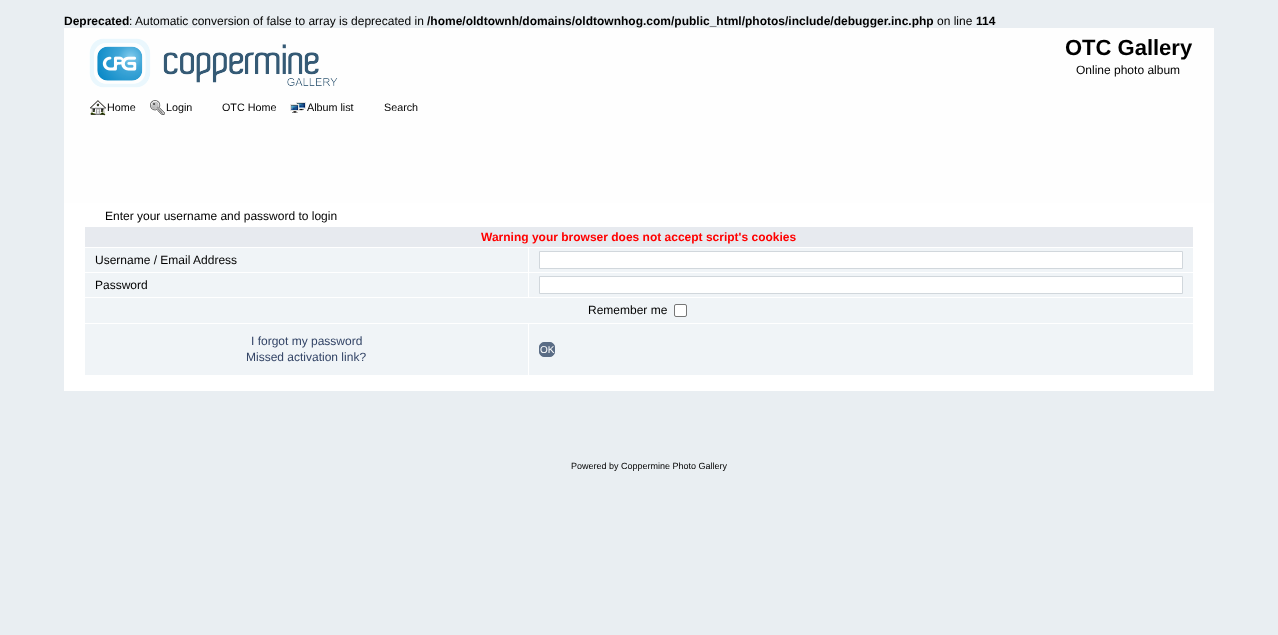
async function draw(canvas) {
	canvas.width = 1278;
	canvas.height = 635;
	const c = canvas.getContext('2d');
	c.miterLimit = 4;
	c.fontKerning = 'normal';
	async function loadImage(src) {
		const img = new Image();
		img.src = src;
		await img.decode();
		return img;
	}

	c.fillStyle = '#e9eef2';
	c.fillRect(0, 0, 1278, 635);
	c.font = 'bold 12px Liberation Sans';
	c.fillStyle = '#000';
	c.fillText('Deprecated', 64, 25);
	c.font = '12px Liberation Sans';
	c.fillText(':', 129, 25);
	c.fillText('Automatic conversion of false to array is deprecated in', 135, 25);
	c.font = 'bold 12px Liberation Sans';
	c.fillText('/home/oldtownh/domains/oldtownhog.com/public_html/photos/include/debugger.inc.php', 427, 25);
	c.font = '12px Liberation Sans';
	c.fillText('on line', 937, 25);
	c.font = 'bold 12px Liberation Sans';
	c.fillText('114', 976, 25);
	c.fillStyle = '#fefefe';
	c.fillRect(64, 28, 1150, 175);
	c.drawImage(await loadImage('img1.png'), 89, 38, 249, 50);
	c.font = 'bold 22px Liberation Sans';
	c.fillStyle = '#000';
	c.fillText('OTC Gallery', 1065, 55);
	c.font = '12px Liberation Sans';
	c.fillText('Online photo album', 1076, 74);
	c.drawImage(await loadImage('img2.png'), 90, 100, 16, 16);
	c.font = '10.75px Liberation Sans';
	c.fillText('Home', 107, 111);
	c.drawImage(await loadImage('img3.png'), 150, 100, 15, 15);
	c.fillText('Login', 166, 111);
	c.fillText('OTC Home', 222, 111);
	c.drawImage(await loadImage('img4.png'), 290, 102, 16, 11);
	c.fillText('Album list', 307, 111);
	c.fillText('Search', 384, 111);
	c.fillStyle = '#fff';
	c.fillRect(64, 203, 1150, 188);
	c.font = '12px Liberation Sans';
	c.fillStyle = '#000';
	c.fillText('Enter your username and password to login', 105, 220);
	c.fillStyle = '#e7eaef';
	c.fillRect(85, 227, 1108, 20);
	c.font = 'bold 12px Liberation Sans';
	c.fillStyle = '#f00';
	c.fillText('Warning your browser does not accept script\'s cookies', 481, 241);
	c.fillStyle = '#f0f4f7';
	c.fillRect(85, 248, 443, 24);
	c.font = '12px Liberation Sans';
	c.fillStyle = '#000';
	c.fillText('Username / Email Address', 95, 264);
	c.fillStyle = '#f0f4f7';
	c.fillRect(529, 248, 664, 24);
	c.fillStyle = '#fff';
	c.beginPath();
	c.rect(539.5, 251.5, 643, 17);
	c.fill();
	c.strokeStyle = '#d1d7dc';
	c.stroke();
	c.fillStyle = '#f0f4f7';
	c.fillRect(85, 273, 443, 24);
	c.fillStyle = '#000';
	c.fillText('Password', 95, 289);
	c.fillStyle = '#f0f4f7';
	c.fillRect(529, 273, 664, 24);
	c.fillStyle = '#fff';
	c.beginPath();
	c.rect(539.5, 276.5, 643, 17);
	c.fill();
	c.stroke();
	c.fillStyle = '#f0f4f7';
	c.fillRect(85, 298, 1108, 25);
	c.fillStyle = '#000';
	c.fillText('Remember me', 588, 314);
	c.fillStyle = '#fff';
	c.beginPath();
	c.roundRect(674.5, 304.5, 12, 12, 1.5);
	c.fill();
	c.strokeStyle = '#767676';
	c.stroke();
	c.fillStyle = '#f0f4f7';
	c.fillRect(85, 324, 443, 51);
	c.fillStyle = '#346';
	c.fillText('I forgot my password', 251, 345);
	c.fillText('Missed activation link?', 246, 361);
	c.fillStyle = '#f0f4f7';
	c.fillRect(529, 324, 664, 51);
	c.fillStyle = '#5a6c85';
	c.beginPath();
	c.roundRect(539.5, 342.5, 15, 14, 4.5);
	c.fill();
	c.strokeStyle = '#5a6c85';
	c.stroke();
	c.font = '10px Liberation Sans';
	c.fillStyle = '#fff';
	c.fillText('OK', 540, 353);
	c.font = '9px Liberation Sans';
	c.fillStyle = '#000';
	c.fillText('Powered by Coppermine Photo Gallery', 571, 469);
}

draw(document.querySelector('canvas'));
